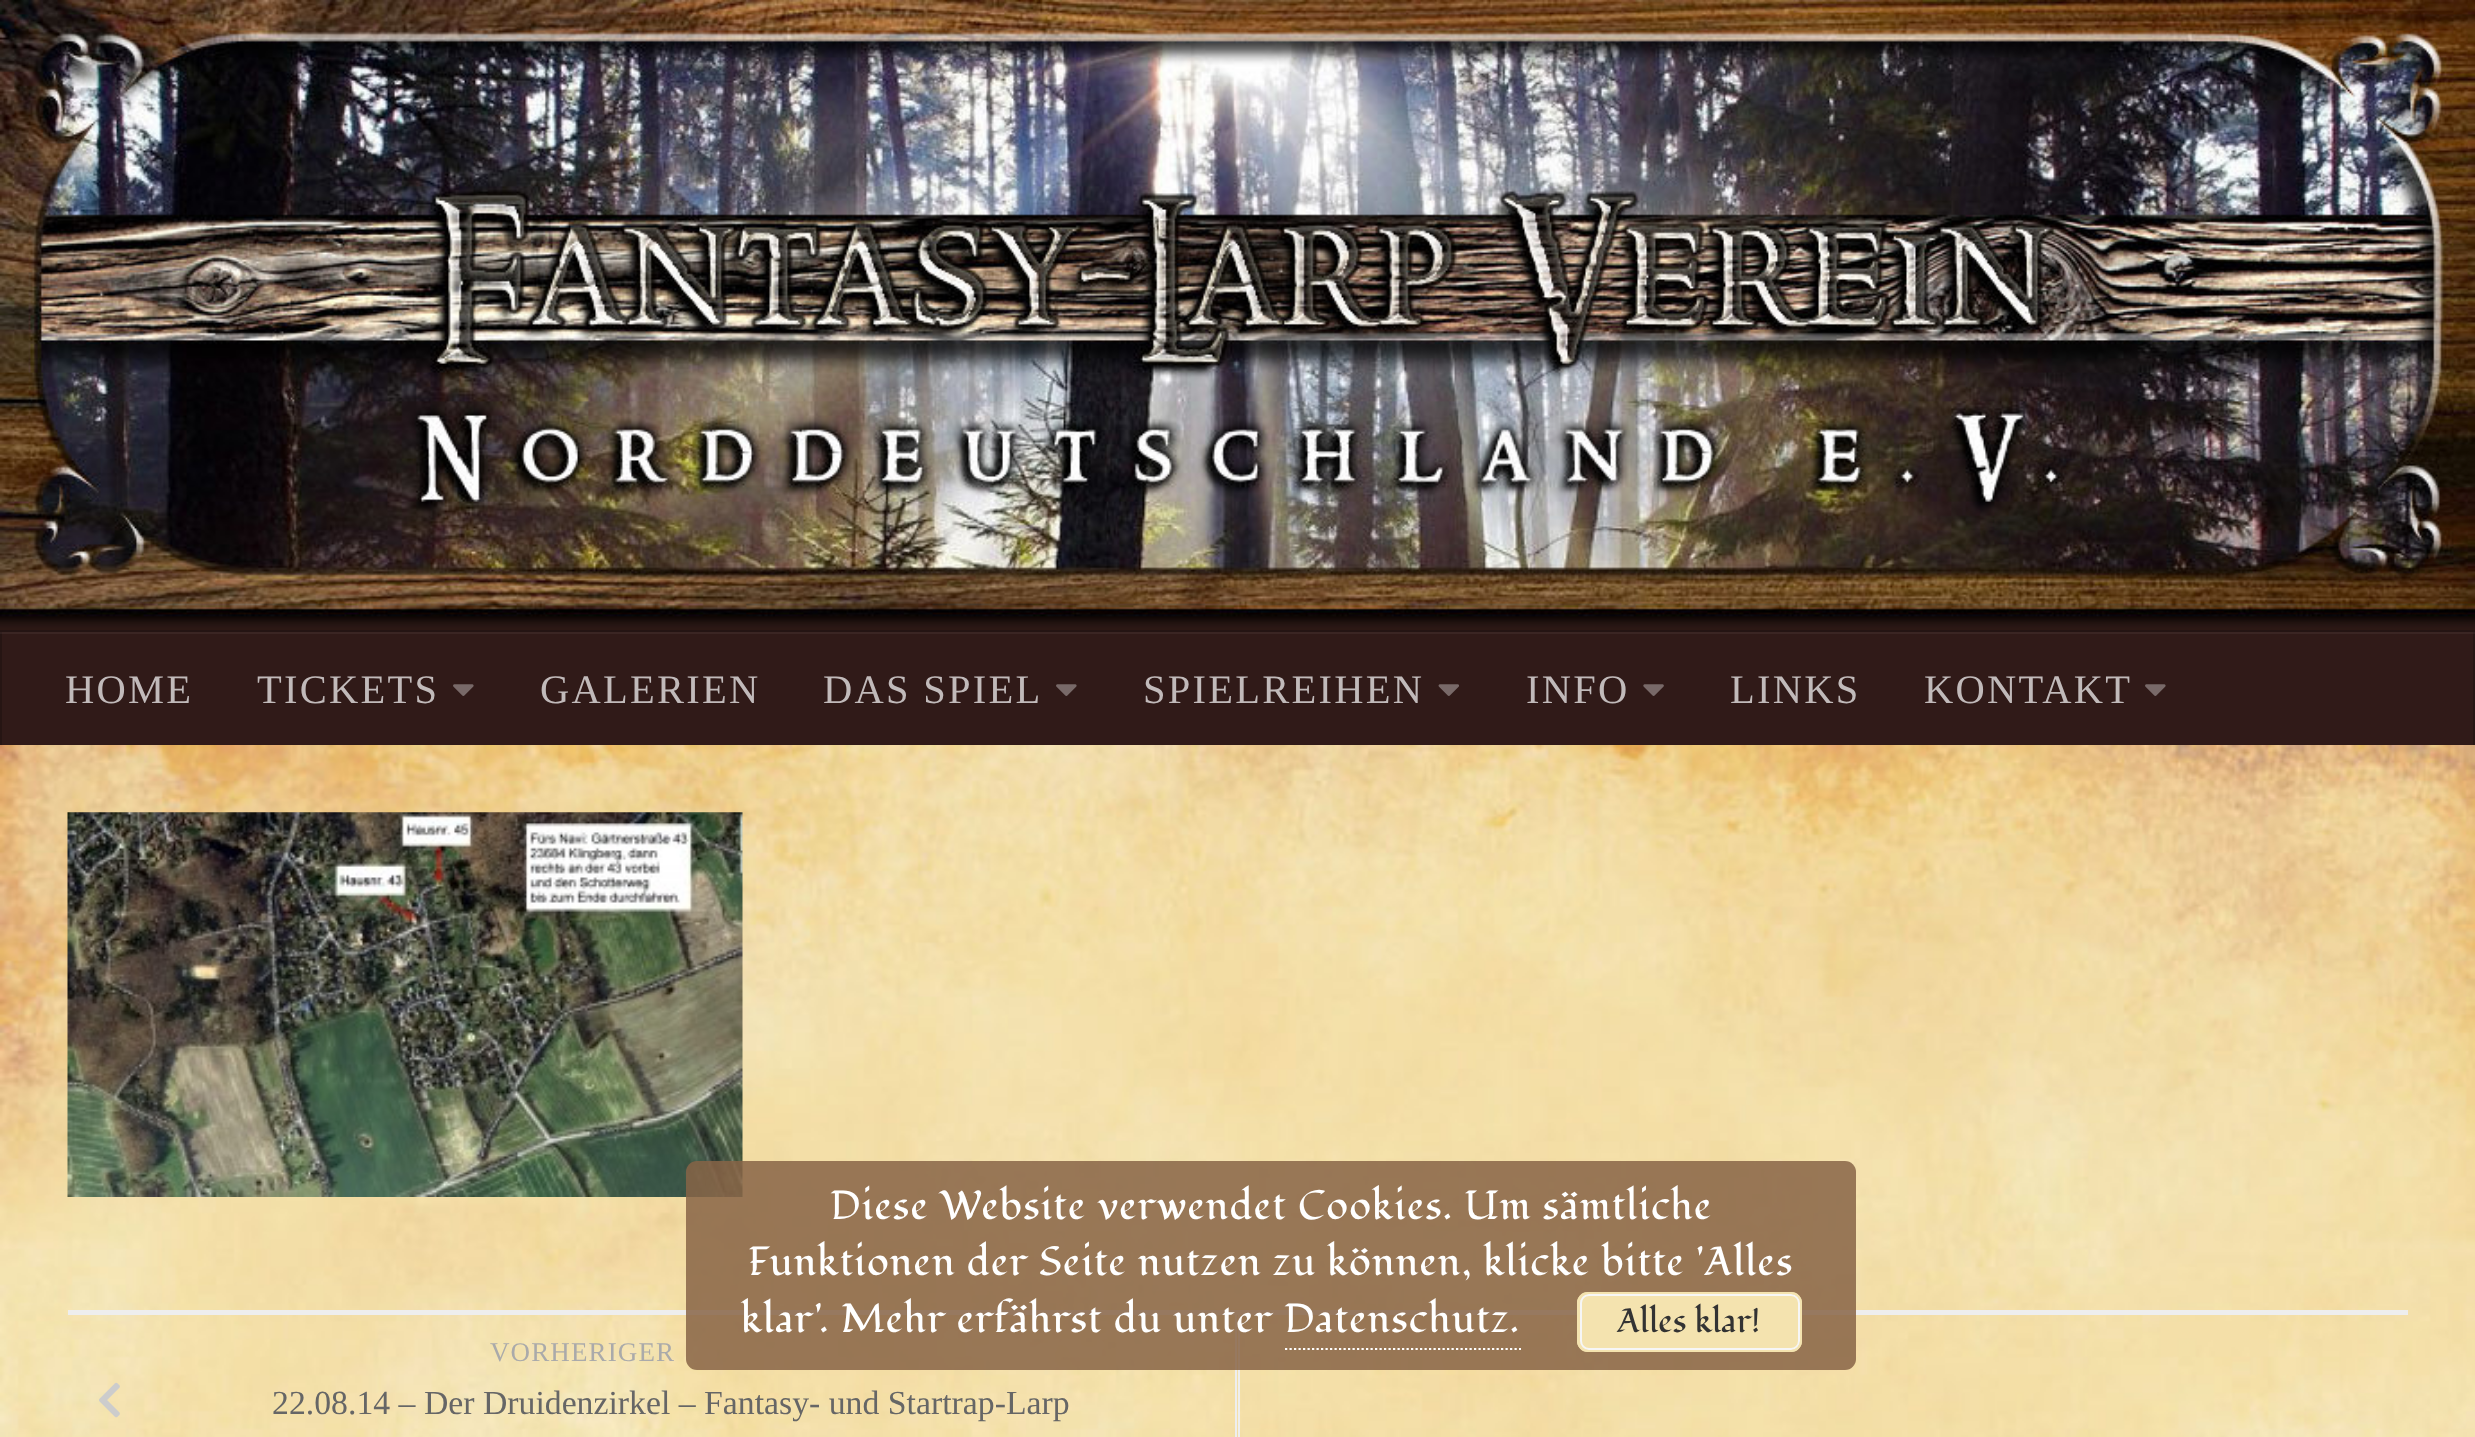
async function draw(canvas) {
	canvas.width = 2475;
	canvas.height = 1437;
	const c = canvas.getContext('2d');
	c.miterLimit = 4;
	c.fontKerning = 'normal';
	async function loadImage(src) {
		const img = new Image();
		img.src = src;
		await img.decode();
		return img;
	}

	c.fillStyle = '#fff';
	c.fillRect(0, 0, 2475, 1437);
	c.drawImage(await loadImage('img1.png'), 0, 0, 2475, 630);
	for (const [x, y, w, h, color] of [
		[0, 630, 2475, 2, '#241413'],
		[2, 632, 2471, 113, '#301a18'],
		[2473, 632, 2, 113, '#261513'],
		[0, 632, 2, 113, '#261513'],
		[0, 632, 2475, 2, '#ffffff0d'],
	]) {
		c.fillStyle = color;
		c.fillRect(x, y, w, h);
	}
	c.letterSpacing = '2.25px';
	c.font = '40.5px Liberation Serif';
	c.fillStyle = '#c1baba';
	c.fillText('HOME', 65, 703);
	c.fillText('TICKETS', 257, 703);
	c.drawImage(await loadImage('img2.png'), 453, 684, 21, 12);
	c.fillText('GALERIEN', 540, 703);
	c.fillText('DAS SPIEL', 823, 703);
	c.drawImage(await loadImage('img2.png'), 1056, 684, 21, 12);
	c.fillText('SPIELREIHEN', 1143, 703);
	c.drawImage(await loadImage('img3.png'), 1438, 684, 21, 12);
	c.fillText('INFO', 1526, 703);
	c.drawImage(await loadImage('img4.png'), 1643, 684, 21, 12);
	c.fillText('LINKS', 1730, 703);
	c.fillText('KONTAKT', 1924, 703);
	c.drawImage(await loadImage('img2.png'), 2145, 684, 21, 12);
	c.drawImage(await loadImage('img5.png'), 0, 745, 2475, 692);
	c.drawImage(await loadImage('img6.png'), 67, 812, 676, 385);
	for (const [x, y, w, h, color] of [
		[68, 1310, 2340, 5, '#eee'],
		[1238, 1314, 2, 123, '#eee'],
		[1235, 1314, 2, 123, '#eee'],
	]) {
		c.fillStyle = color;
		c.fillRect(x, y, w, h);
	}
	c.letterSpacing = '1.12px';
	c.font = '27px Liberation Serif';
	c.fillStyle = '#aaa';
	c.fillText('VORHERIGER', 490, 1361);
	c.drawImage(await loadImage('img7.png'), 99, 1382, 21, 36);
	c.letterSpacing = '0px';
	c.font = '33.75px Liberation Serif';
	c.fillStyle = '#666';
	c.fillText('22.08.14 – Der Druidenzirkel – Fantasy- und Startrap-Larp', 272, 1414);
	c.fillStyle = '#876446d9';
	c.beginPath();
	c.roundRect(686, 1161, 1170, 209, 11);
	c.fill();
	c.letterSpacing = '1.12px';
	c.font = '40.5px Fondamento';
	c.fillStyle = '#fff';
	for (const [text, x, y] of [
		['Diese Website verwendet Cookies. Um sämtliche', 830, 1219],
		['Funktionen der Seite nutzen zu können, klicke bitte \'Alles', 748, 1275],
		['klar\'. Mehr erfährst du unter Datenschutz.', 741, 1332],
	]) {
		c.fillText(text, x, y);
	}
	c.fillStyle = '#f4e3af';
	c.beginPath();
	c.roundRect(1577, 1292, 225, 60, 11);
	c.fill();
	c.beginPath();
	c.roundRect(1581, 1295, 218, 54, 8);
	c.strokeStyle = '#f6f6f6';
	c.lineWidth = 2;
	c.stroke();
	c.beginPath();
	c.roundRect(1578, 1293, 223, 58, 10);
	c.strokeStyle = '#f4e3af';
	c.stroke();
	c.letterSpacing = '0px';
	c.font = '33.75px Fondamento';
	c.fillStyle = '#333';
	c.fillText('Alles klar!', 1617, 1332);
	c.beginPath();
	c.moveTo(1285, 1349);
	c.lineTo(1521, 1349);
	c.strokeStyle = '#fff';
	c.lineWidth = 2.2;
	c.setLineDash([2.25, 2.25]);
	c.stroke();
}

draw(document.querySelector('canvas'));
